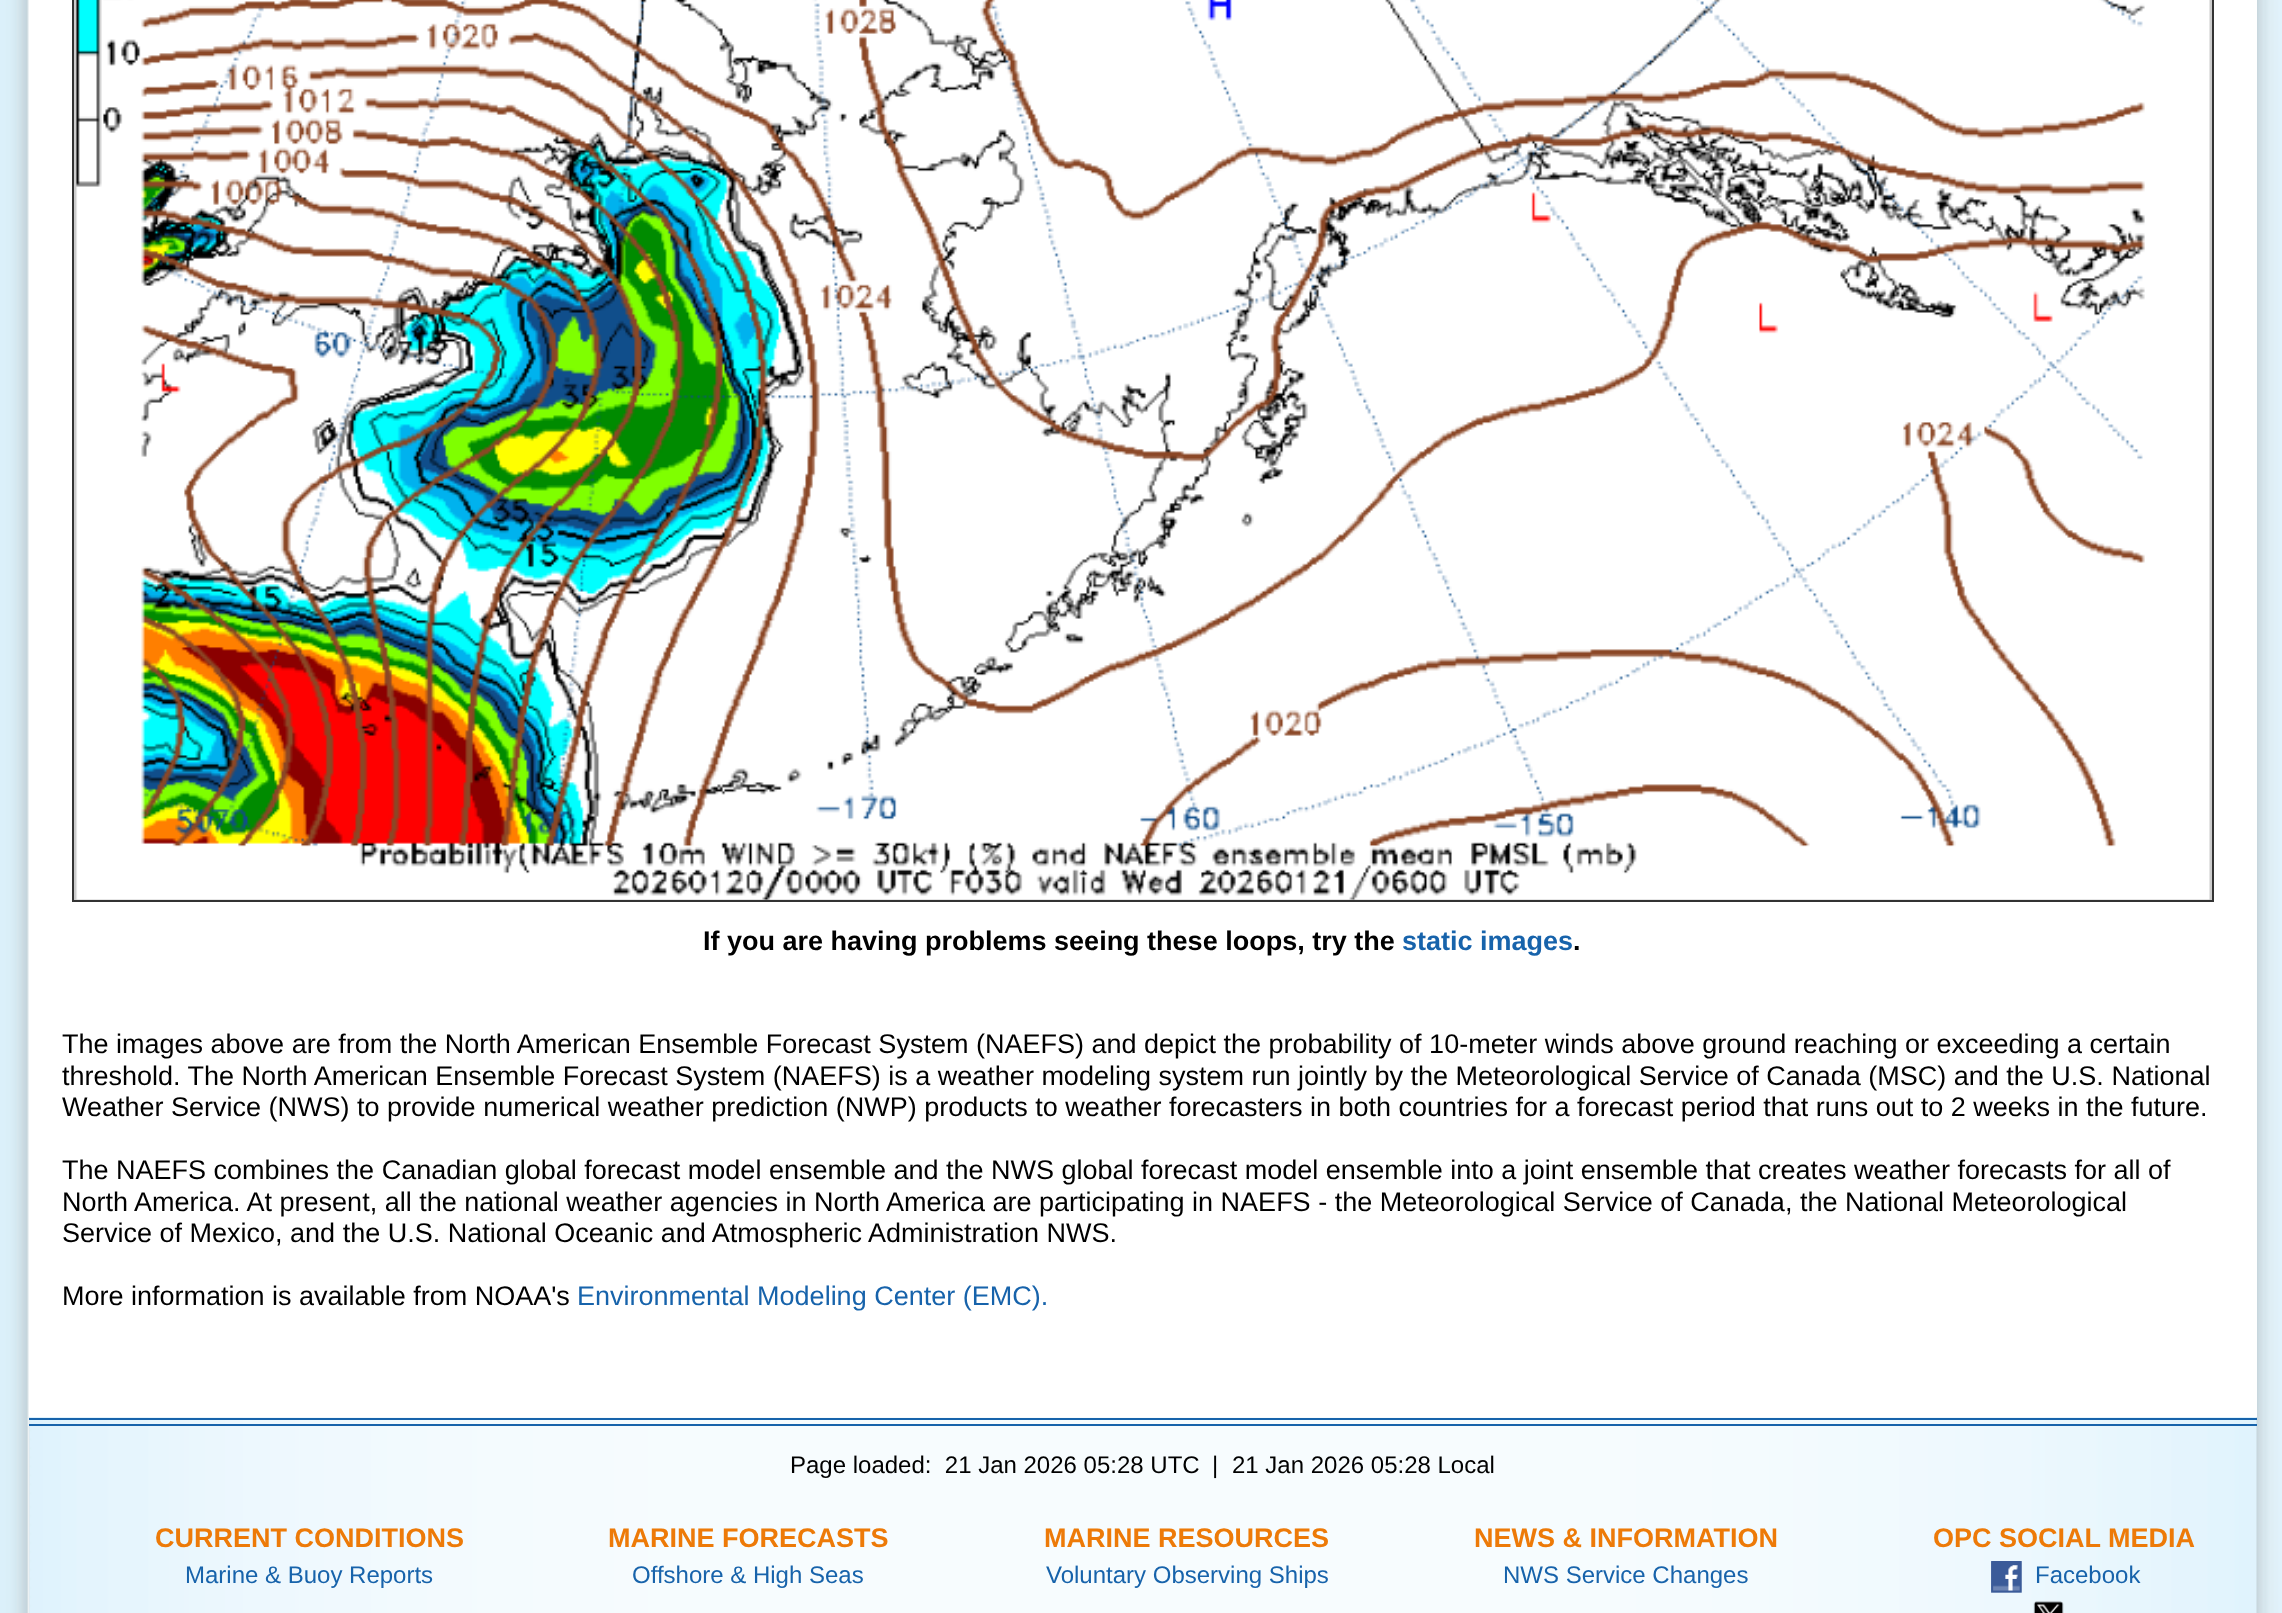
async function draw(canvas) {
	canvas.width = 2282;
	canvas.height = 1613;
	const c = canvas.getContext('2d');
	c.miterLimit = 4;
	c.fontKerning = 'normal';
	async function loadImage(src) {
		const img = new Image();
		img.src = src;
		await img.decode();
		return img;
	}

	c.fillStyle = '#fff';
	c.fillRect(0, 0, 2282, 1613);
	c.drawImage(await loadImage('img3.png'), 0, 0, 2282, 1613);
	c.fillRect(2255, 0, 2, 1417);
	c.fillStyle = '#ccc';
	c.beginPath();
	c.rect(73, -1, 2140, 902);
	c.fill();
	c.strokeStyle = '#333';
	c.lineWidth = 2;
	c.stroke();
	c.drawImage(await loadImage('img1.png'), 76, 0, 2134, 900);
	c.font = 'bold 27px Liberation Sans';
	c.fillStyle = '#000';
	c.fillText('If you are having problems seeing these loops, try the', 703, 950);
	c.fillStyle = '#1763ab';
	c.fillText('static images', 1402, 950);
	c.fillStyle = '#000';
	c.fillText('.', 1573, 950);
	c.font = '27px Liberation Sans';
	for (const [text, x, y] of [
		['The images above are from the North American Ensemble Forecast System (NAEFS) and depict the probability of 10-meter winds above ground reaching or exceeding a certain', 62, 1053],
		['threshold. The North American Ensemble Forecast System (NAEFS) is a weather modeling system run jointly by the Meteorological Service of Canada (MSC) and the U.S. National', 62, 1085],
		['Weather Service (NWS) to provide numerical weather prediction (NWP) products to weather forecasters in both countries for a forecast period that runs out to 2 weeks in the future.', 62, 1116],
		['The NAEFS combines the Canadian global forecast model ensemble and the NWS global forecast model ensemble into a joint ensemble that creates weather forecasts for all of', 62, 1179],
		['North America. At present, all the national weather agencies in North America are participating in NAEFS - the Meteorological Service of Canada, the National Meteorological', 62, 1211],
		['Service of Mexico, and the U.S. National Oceanic and Atmospheric Administration NWS.', 62, 1242],
		['More information is available from NOAA\'s', 62, 1305],
	]) {
		c.fillText(text, x, y);
	}
	c.fillStyle = '#1763ab';
	c.fillText('Environmental Modeling Center (EMC).', 577, 1305);
	c.drawImage(await loadImage('img2.png'), 29, 1417, 2228, 196);
	c.fillRect(29, 1418, 2228, 2);
	c.fillRect(29, 1424, 2228, 2);
	c.font = '24px Liberation Sans';
	c.fillStyle = '#000';
	for (const [text, x, y] of [
		['Page loaded:  21 Jan 2026 05:28 UTC', 790, 1473],
		['|', 1212, 1473],
		['21 Jan 2026 05:28 Local', 1232, 1473],
	]) {
		c.fillText(text, x, y);
	}
	c.font = 'bold 27px Liberation Sans';
	c.fillStyle = '#ed7a08';
	c.fillText('CURRENT CONDITIONS', 155, 1547);
	c.font = '24px Liberation Sans';
	c.fillStyle = '#1763ab';
	c.fillText('Marine & Buoy Reports', 185, 1583);
	c.font = 'bold 27px Liberation Sans';
	c.fillStyle = '#ed7a08';
	c.fillText('MARINE FORECASTS', 608, 1547);
	c.font = '24px Liberation Sans';
	c.fillStyle = '#1763ab';
	c.fillText('Offshore & High Seas', 632, 1583);
	c.font = 'bold 27px Liberation Sans';
	c.fillStyle = '#ed7a08';
	c.fillText('MARINE RESOURCES', 1044, 1547);
	c.font = '24px Liberation Sans';
	c.fillStyle = '#1763ab';
	c.fillText('Voluntary Observing Ships', 1046, 1583);
	c.font = 'bold 27px Liberation Sans';
	c.fillStyle = '#ed7a08';
	c.fillText('NEWS & INFORMATION', 1474, 1547);
	c.font = '24px Liberation Sans';
	c.fillStyle = '#1763ab';
	c.fillText('NWS Service Changes', 1503, 1583);
	c.font = 'bold 27px Liberation Sans';
	c.fillStyle = '#ed7a08';
	c.fillText('OPC SOCIAL MEDIA', 1933, 1547);
	c.drawImage(await loadImage('img4.png'), 1991, 1561, 31, 32);
	c.font = '24px Liberation Sans';
	c.fillStyle = '#1763ab';
	c.fillText('Facebook', 2035, 1583);
	c.drawImage(await loadImage('img5.png'), 2033, 1601, 31, 12);
}

draw(document.querySelector('canvas'));
